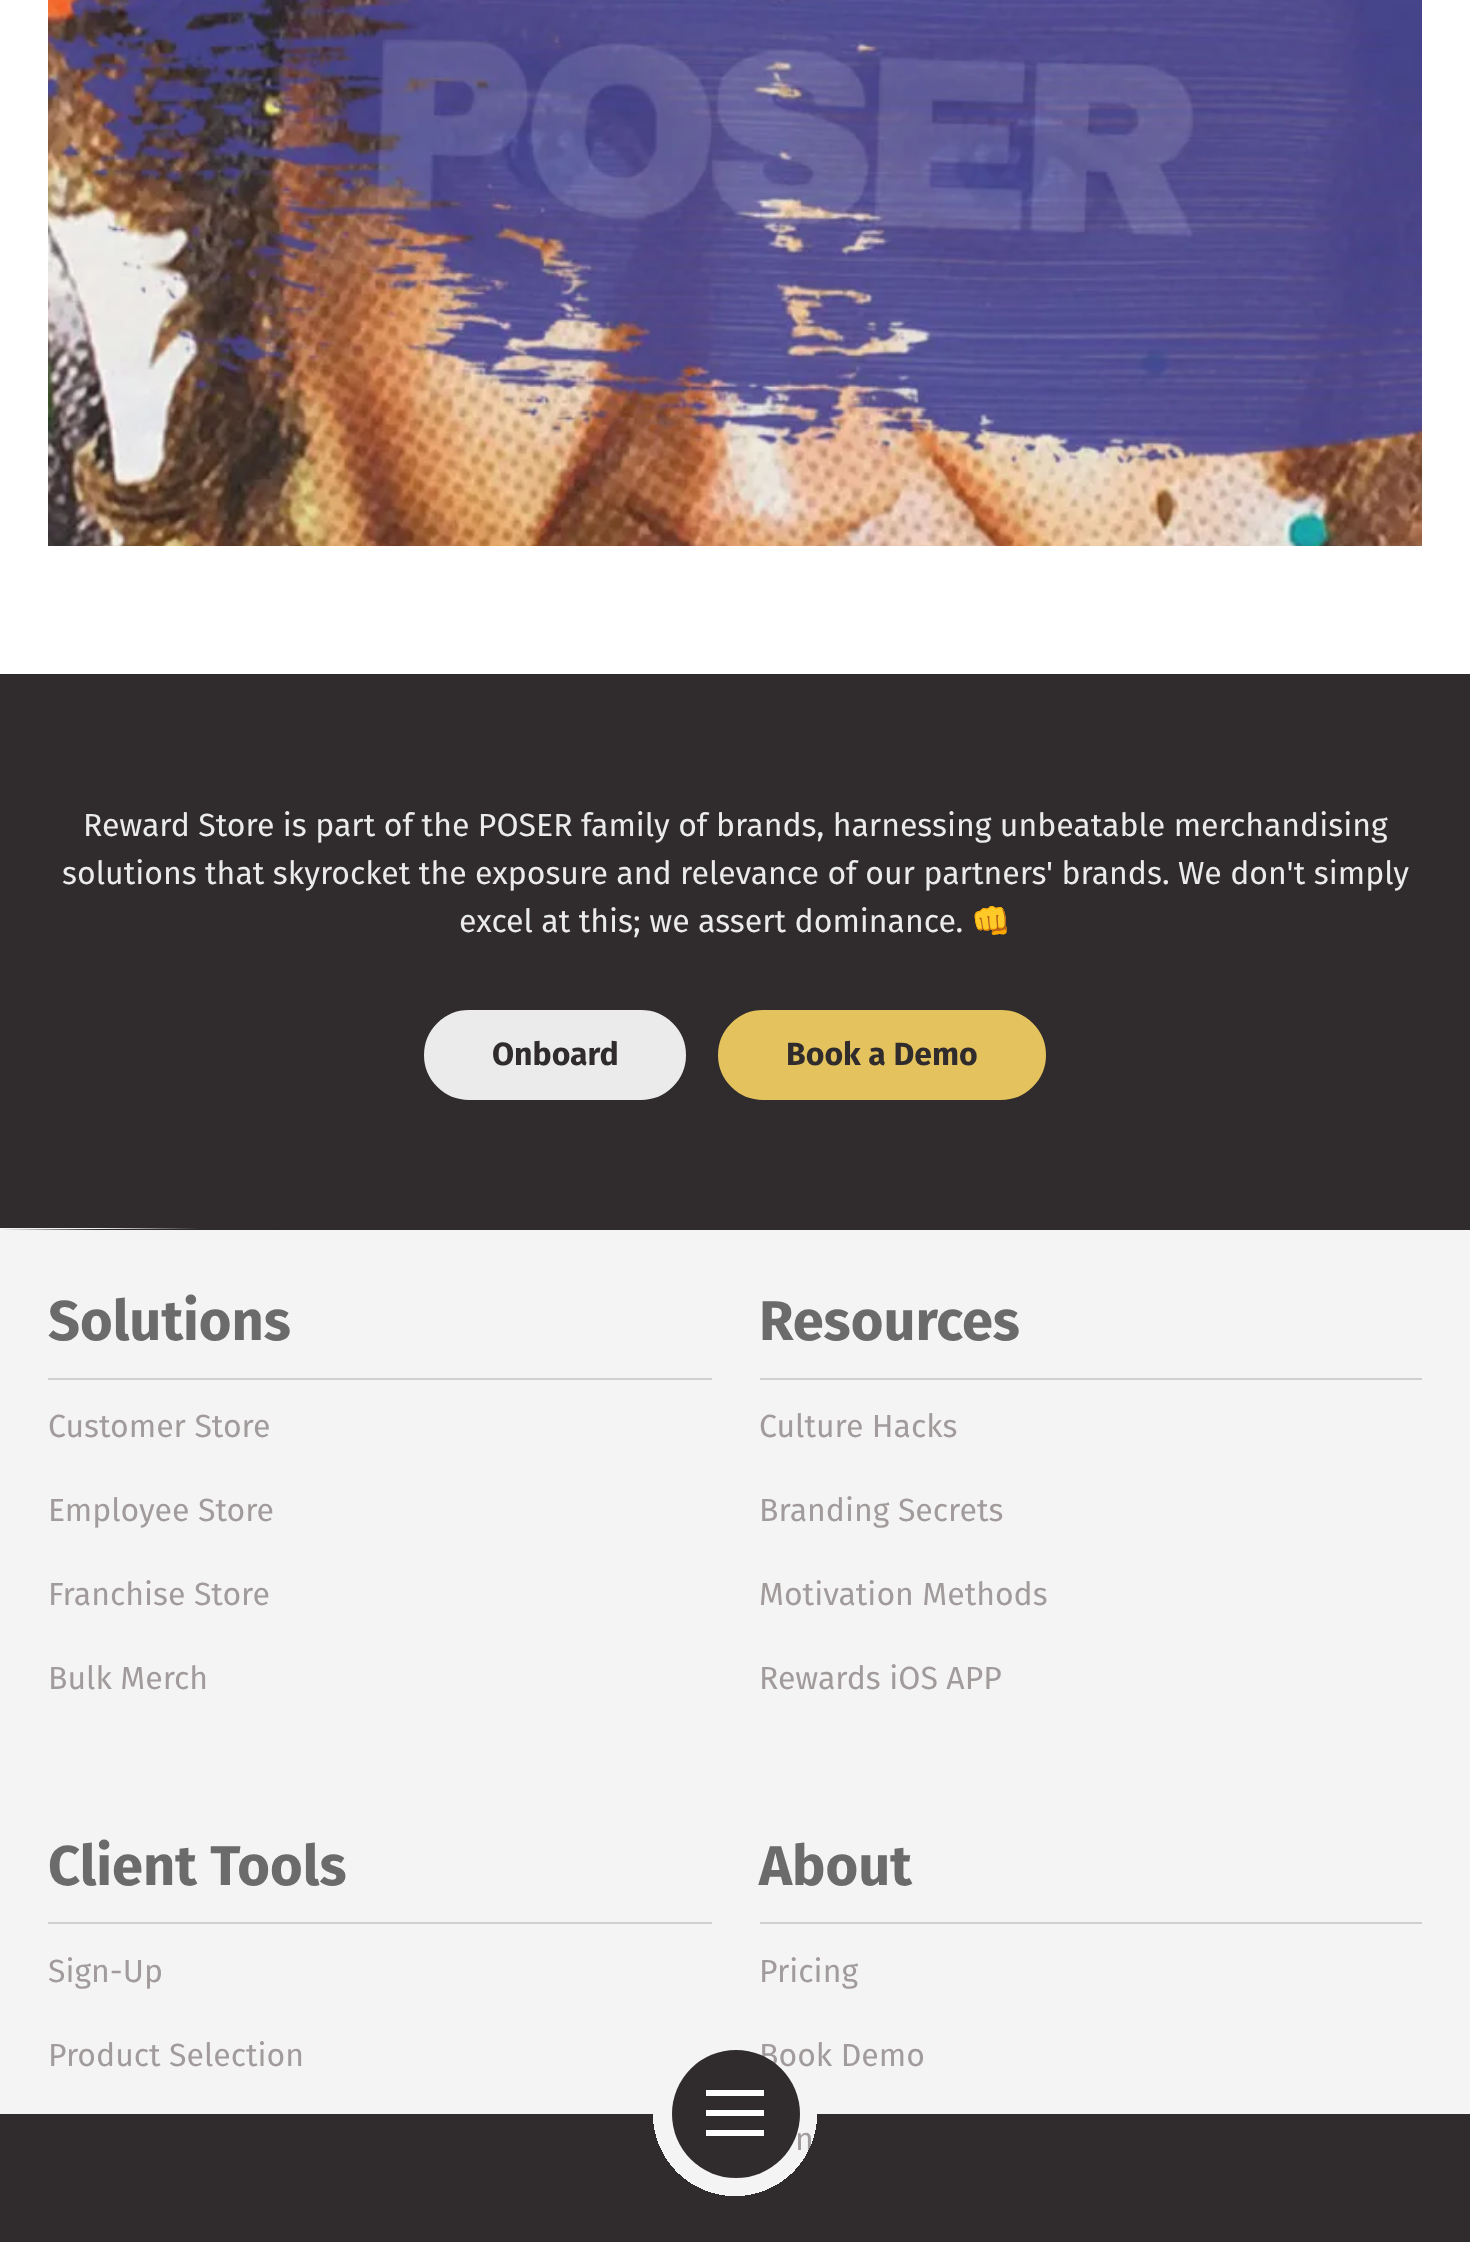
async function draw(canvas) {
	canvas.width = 1470;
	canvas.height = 2242;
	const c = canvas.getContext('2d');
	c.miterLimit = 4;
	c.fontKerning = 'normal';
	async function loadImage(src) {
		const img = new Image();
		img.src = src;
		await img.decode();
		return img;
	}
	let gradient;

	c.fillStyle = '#fff';
	c.fillRect(0, 0, 1470, 2242);
	c.drawImage(await loadImage('img1.png'), 48, 0, 1374, 546);
	c.fillStyle = '#302c2d';
	c.fillRect(0, 674, 1470, 554);
	c.font = '32px Fira Sans';
	c.fillStyle = '#ebebeb';
	for (const [text, x, y] of [
		['Reward Store is part of the POSER family of brands, harnessing unbeatable merchandising', 83, 836],
		['solutions that skyrocket the exposure and relevance of our partners\' brands. We don\'t simply', 62, 884],
		['excel at this; we assert dominance.', 459, 932],
	]) {
		c.fillText(text, x, y);
	}
	c.font = '32px Noto Color Emoji';
	c.fillText('👊', 971, 932);
	c.beginPath();
	c.roundRect(426, 1012, 258, 86, 43);
	c.fill();
	c.strokeStyle = '#ebebeb';
	c.lineWidth = 4;
	c.stroke();
	c.font = 'bold 32px Fira Sans';
	c.fillStyle = '#302c2d';
	c.fillText('Onboard', 492, 1065);
	c.fillStyle = '#e4c35e';
	c.beginPath();
	c.roundRect(720, 1012, 324, 86, 43);
	c.fill();
	c.strokeStyle = '#e4c35e';
	c.stroke();
	c.fillStyle = '#302c2d';
	c.fillText('Book a Demo', 786, 1065);
	c.fillStyle = '#f5f4f4';
	c.fillRect(0, 1228, 1470, 968);
	c.fillStyle = '#302c2d';
	c.beginPath();
	c.moveTo(0, 1230);
	c.lineTo(1470, 1230);
	c.lineTo(1470, 1216);
	c.lineTo(1395, 1216);
	c.closePath();
	c.fill();
	c.fillStyle = '#d0cfcf';
	c.fillRect(48, 1378, 664, 2);
	c.font = 'bold 56px Fira Sans';
	c.fillStyle = '#6b6b6b';
	c.fillText('Solutions', 48, 1340);
	c.font = '32px Fira Sans';
	c.fillStyle = '#a19b9c';
	for (const [text, x, y] of [
		['Customer Store', 48, 1437],
		['Employee Store', 48, 1521],
		['Franchise Store', 48, 1605],
		['Bulk Merch', 48, 1689],
	]) {
		c.fillText(text, x, y);
	}
	c.fillStyle = '#d0cfcf';
	c.fillRect(760, 1378, 662, 2);
	c.font = 'bold 56px Fira Sans';
	c.fillStyle = '#6b6b6b';
	c.fillText('Resources', 759, 1340);
	c.font = '32px Fira Sans';
	c.fillStyle = '#a19b9c';
	for (const [text, x, y] of [
		['Culture Hacks', 759, 1437],
		['Branding Secrets', 759, 1521],
		['Motivation Methods', 759, 1605],
		['Rewards iOS APP', 759, 1689],
	]) {
		c.fillText(text, x, y);
	}
	c.fillStyle = '#d0cfcf';
	c.fillRect(48, 1922, 664, 2);
	c.font = 'bold 56px Fira Sans';
	c.fillStyle = '#6b6b6b';
	c.fillText('Client Tools', 48, 1885);
	c.font = '32px Fira Sans';
	c.fillStyle = '#a19b9c';
	c.fillText('Sign-Up', 48, 1982);
	c.fillText('Product Selection', 48, 2066);
	c.fillStyle = '#d0cfcf';
	c.fillRect(760, 1922, 662, 2);
	c.font = 'bold 56px Fira Sans';
	c.fillStyle = '#6b6b6b';
	c.fillText('About', 759, 1885);
	c.font = '32px Fira Sans';
	c.fillStyle = '#a19b9c';
	for (const [text, x, y] of [
		['Pricing', 759, 1982],
		['Book Demo', 759, 2066],
		['n', 795, 2150],
	]) {
		c.fillText(text, x, y);
	}
	gradient = c.createRadialGradient(735, 2114, 0, 735, 2114, 746);
	gradient.addColorStop(0.11, '#302c2d00');
	gradient.addColorStop(0.11, '#302c2d');
	c.fillStyle = gradient;
	c.fillRect(0, 2114, 1470, 128);
	c.fillStyle = '#302c2d';
	c.beginPath();
	c.arc(736, 2114, 64, 0, 2 * Math.PI);
	c.fill();
	for (const [x, y, w, h, color] of [
		[706, 2110, 58, 6, '#fff'],
		[706, 2090, 58, 6, '#fff'],
		[706, 2130, 58, 6, '#fff'],
	]) {
		c.fillStyle = color;
		c.fillRect(x, y, w, h);
	}
}

draw(document.querySelector('canvas'));
